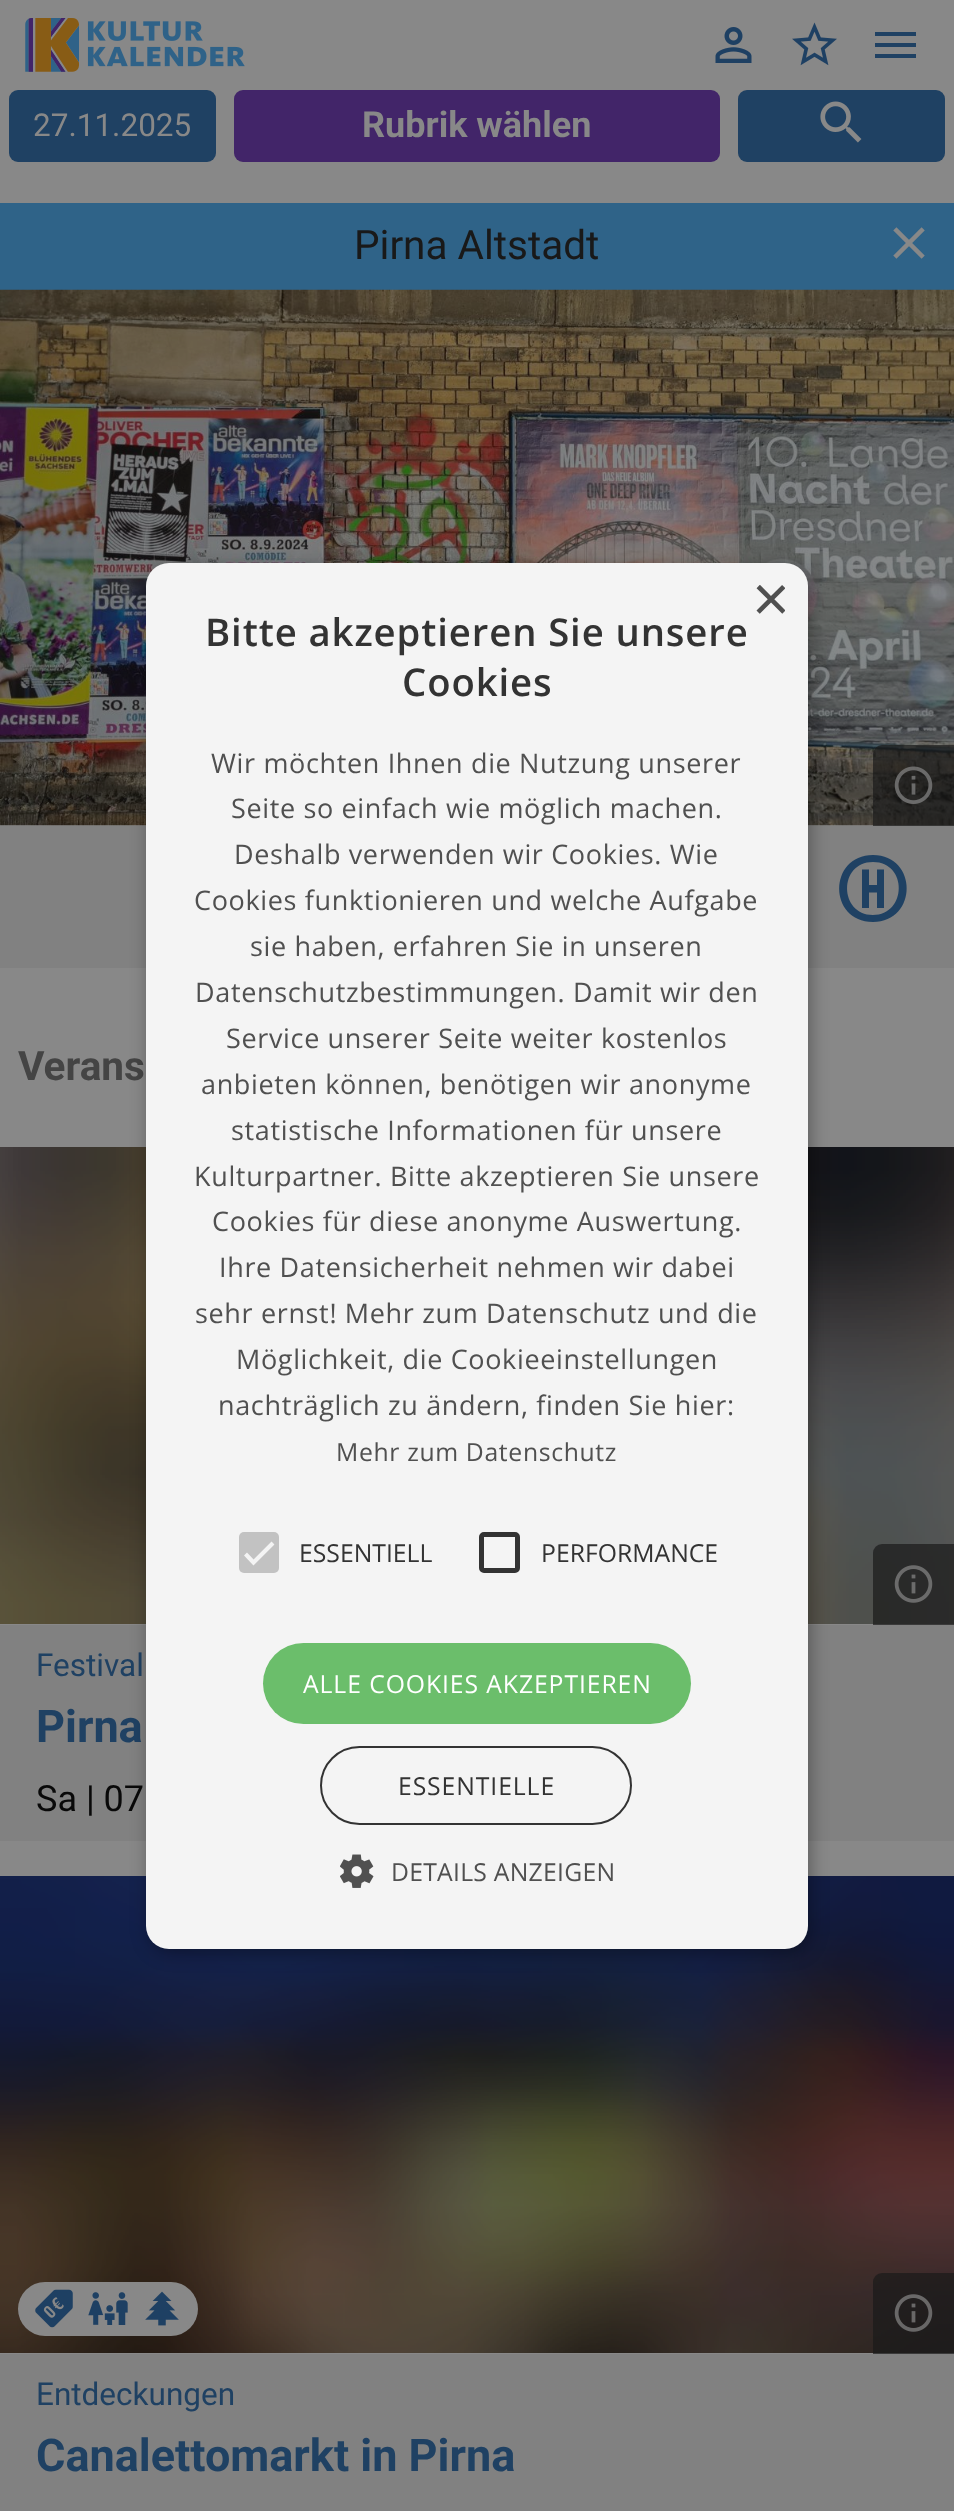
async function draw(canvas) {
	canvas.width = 954;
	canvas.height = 2511;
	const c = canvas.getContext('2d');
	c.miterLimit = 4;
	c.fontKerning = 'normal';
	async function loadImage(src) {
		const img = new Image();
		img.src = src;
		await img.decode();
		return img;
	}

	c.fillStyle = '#888';
	c.fillRect(0, 0, 954, 2511);
	c.drawImage(await loadImage('img1.png'), 25, 18, 220, 54);
	c.drawImage(await loadImage('img2.png'), 715, 27, 37, 36);
	c.drawImage(await loadImage('img3.png'), 792, 22, 45, 44);
	c.fillStyle = '#1f4163';
	c.beginPath();
	c.moveTo(875, 32);
	c.lineTo(916, 32);
	c.lineTo(916, 36);
	c.lineTo(875, 36);
	c.lineTo(875, 32);
	c.moveTo(875, 43);
	c.lineTo(916, 43);
	c.lineTo(916, 47);
	c.lineTo(875, 47);
	c.lineTo(875, 43);
	c.moveTo(875, 54);
	c.lineTo(916, 54);
	c.lineTo(916, 58);
	c.lineTo(875, 58);
	c.closePath();
	c.fill();
	c.beginPath();
	c.roundRect(9, 90, 207, 72, 9);
	c.fill();
	c.font = '31.5px Roboto';
	c.fillStyle = '#888';
	c.fillText('27.11.2025', 33, 136);
	c.fillStyle = '#422569';
	c.beginPath();
	c.roundRect(234, 90, 486, 72, 9);
	c.fill();
	c.font = 'bold 36px Roboto';
	c.fillStyle = '#888';
	c.fillText('Rubrik wählen', 362, 137);
	c.fillStyle = '#1f4163';
	c.beginPath();
	c.roundRect(738, 90, 207, 72, 9);
	c.fill();
	c.drawImage(await loadImage('img4.png'), 820, 101, 42, 42);
	c.fillStyle = '#2f6388';
	c.fillRect(0, 203, 954, 87);
	c.font = '40.5px Roboto';
	c.fillStyle = '#191919';
	c.fillText('Pirna Altstadt', 354, 259);
	c.drawImage(await loadImage('img5.png'), 0, 289, 954, 537);
	c.fillStyle = '#191919b3';
	c.beginPath();
	c.roundRect(873, 745, 81, 81, [9, 0, 0, 0]);
	c.fill();
	c.drawImage(await loadImage('img6.png'), 894, 766, 39, 38);
	c.fillStyle = '#818181';
	c.fillRect(0, 826, 954, 142);
	c.fillStyle = '#1f4163';
	c.beginPath();
	c.moveTo(873, 855);
	c.bezierCurveTo(828, 855, 828, 922, 873, 922);
	c.bezierCurveTo(918, 922, 918, 855, 873, 855);
	c.closePath();
	c.moveTo(873, 915);
	c.bezierCurveTo(839, 915, 838, 862, 873, 862);
	c.bezierCurveTo(908, 862, 907, 915, 873, 915);
	c.closePath();
	c.fill();
	c.beginPath();
	c.moveTo(862, 869.5);
	c.lineTo(862, 908);
	c.lineTo(869, 908);
	c.lineTo(869, 892.5);
	c.lineTo(877, 892.5);
	c.lineTo(877, 908);
	c.lineTo(884, 908);
	c.lineTo(884, 869.5);
	c.lineTo(877, 869.5);
	c.lineTo(877, 885);
	c.lineTo(869, 885);
	c.lineTo(869, 869.5);
	c.closePath();
	c.fill();
	c.drawImage(await loadImage('img7.png'), 893, 227, 32, 32);
	c.font = 'bold 40.5px Roboto';
	c.fillStyle = '#444';
	c.fillText('Verans', 18, 1080);
	c.drawImage(await loadImage('img8.png'), 0, 1147, 954, 477);
	c.fillStyle = '#191919b3';
	c.beginPath();
	c.roundRect(873, 1544, 81, 81, [9, 0, 0, 0]);
	c.fill();
	c.drawImage(await loadImage('img9.png'), 894, 1565, 39, 38);
	c.fillStyle = '#818181';
	c.fillRect(0, 1625, 954, 216);
	c.font = '31.5px Roboto';
	c.fillStyle = '#1f4163';
	c.fillText('Festival', 36, 1676);
	c.font = 'bold 45px Roboto';
	c.fillText('Pirna', 36, 1742);
	c.font = '36px Roboto';
	c.fillStyle = '#090909';
	c.fillText('Sa | 07', 36, 1811);
	c.drawImage(await loadImage('img10.png'), 0, 1876, 954, 477);
	c.fillStyle = '#191919b3';
	c.beginPath();
	c.roundRect(873, 2273, 81, 81, [9, 0, 0, 0]);
	c.fill();
	c.drawImage(await loadImage('img11.png'), 894, 2294, 39, 38);
	c.fillStyle = '#888';
	c.beginPath();
	c.roundRect(18, 2282, 180, 54, 27);
	c.fill();
	c.drawImage(await loadImage('img12.png'), 35, 2289, 38, 39);
	c.drawImage(await loadImage('img13.png'), 88, 2292, 40, 33);
	c.drawImage(await loadImage('img14.png'), 145, 2291, 34, 35);
	c.fillStyle = '#818181';
	c.fillRect(0, 2354, 954, 157);
	c.font = '31.5px Roboto';
	c.fillStyle = '#1f4163';
	c.fillText('Entdeckungen', 36, 2405);
	c.font = 'bold 45px Roboto';
	c.fillText('Canalettomarkt in Pirna', 36, 2471);
	c.fillStyle = '#00000059';
	c.filter = 'blur(9px)';
	c.beginPath();
	c.roundRect(149, 567, 661, 1386, 23);
	c.fill();
	c.filter = 'none';
	c.fillStyle = '#f4f4f4';
	c.beginPath();
	c.roundRect(146, 563, 662, 1386, 23);
	c.fill();
	c.save();
	c.beginPath();
	c.rect(752, 585, 33, 34);
	c.clip();
	c.font = '65px Liberation Sans';
	c.fillStyle = '#505050';
	c.fillText('×', 752, 621);
	c.restore();
	c.letterSpacing = '0.9px';
	c.font = '600 38.25px Open Sans';
	c.fillStyle = '#333';
	c.fillText('Bitte akzeptieren Sie unsere', 205, 646);
	c.fillText('Cookies', 402, 696);
	c.letterSpacing = '0.65px';
	c.font = '27px Open Sans';
	c.fillStyle = '#505050';
	for (const [text, x, y] of [
		['Wir möchten Ihnen die Nutzung unserer', 211, 773],
		['Seite so einfach wie möglich machen.', 231, 818],
		['Deshalb verwenden wir Cookies. Wie', 234, 864],
		['Cookies funktionieren und welche Aufgabe', 194, 910],
		['sie haben, erfahren Sie in unseren', 250, 956],
		['Datenschutzbestimmungen. Damit wir den', 195, 1002],
		['Service unserer Seite weiter kostenlos', 226, 1048],
		['anbieten können, benötigen wir anonyme', 201, 1094],
		['statistische Informationen für unsere', 231, 1140],
		['Kulturpartner. Bitte akzeptieren Sie unsere', 194, 1186],
		['Cookies für diese anonyme Auswertung.', 212, 1231],
		['Ihre Datensicherheit nehmen wir dabei', 219, 1277],
		['sehr ernst! Mehr zum Datenschutz und die', 195, 1323],
		['Möglichkeit, die Cookieeinstellungen', 236, 1369],
		['nachträglich zu ändern, finden Sie hier:', 218, 1415],
	]) {
		c.fillText(text, x, y);
	}
	c.font = '24.75px Open Sans';
	c.fillText('Mehr zum Datenschutz', 336, 1461);
	c.fillStyle = '#c2c2c2';
	c.beginPath();
	c.roundRect(239, 1532, 40, 41, 5);
	c.fill();
	c.beginPath();
	c.moveTo(245.5, 1554);
	c.lineTo(253.5, 1562.5);
	c.lineTo(273, 1543);
	c.strokeStyle = '#f4f4f4';
	c.lineWidth = 4.1;
	c.stroke();
	c.letterSpacing = '0px';
	c.fillStyle = '#333';
	c.fillText('ESSENTIELL', 299, 1562);
	c.beginPath();
	c.roundRect(481.5, 1534.5, 36, 36, 2.5);
	c.strokeStyle = '#333';
	c.lineWidth = 5;
	c.stroke();
	c.fillText('PERFORMANCE', 541, 1562);
	c.fillStyle = '#6bbe6b';
	c.beginPath();
	c.roundRect(263, 1643, 428, 81, 40.5);
	c.fill();
	c.letterSpacing = '0.9px';
	c.fillStyle = '#fff';
	c.fillText('ALLE COOKIES AKZEPTIEREN', 303, 1693);
	c.beginPath();
	c.roundRect(321, 1747, 310, 77, 38.5);
	c.lineWidth = 2;
	c.stroke();
	c.fillStyle = '#333';
	c.fillText('ESSENTIELLE', 398, 1795);
	c.drawImage(await loadImage('img15.png'), 340, 1854, 34, 34);
	c.letterSpacing = '0.25px';
	c.fillStyle = '#505050';
	c.fillText('DETAILS ANZEIGEN', 391, 1881);
}

draw(document.querySelector('canvas'));
